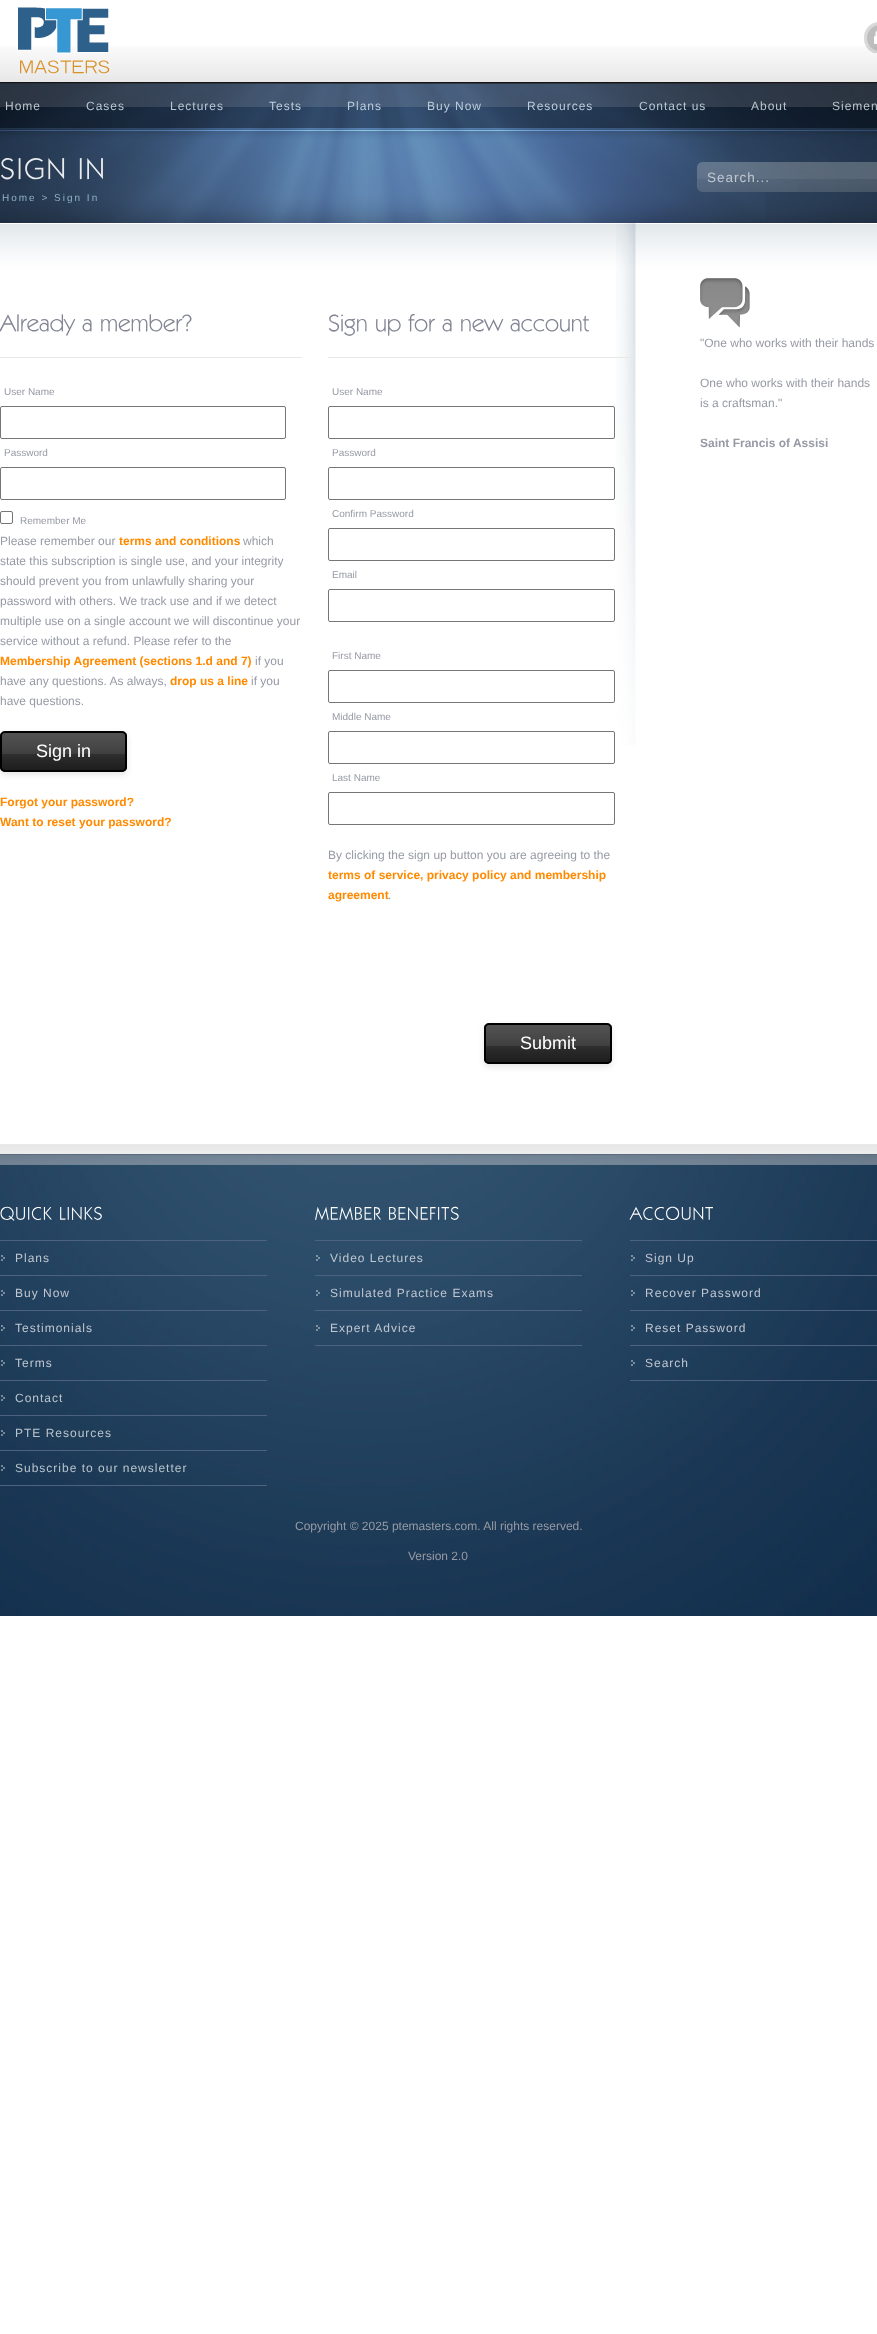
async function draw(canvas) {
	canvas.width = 877;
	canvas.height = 2334;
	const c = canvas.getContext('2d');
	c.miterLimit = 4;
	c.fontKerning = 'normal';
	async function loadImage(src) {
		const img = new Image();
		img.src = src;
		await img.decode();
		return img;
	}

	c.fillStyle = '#fff';
	c.fillRect(0, 0, 877, 2334);
	c.drawImage(await loadImage('img1.png'), 0, 46, 877, 37);
	c.drawImage(await loadImage('img2.png'), 17, 7, 93, 67);
	c.drawImage(await loadImage('img3.png'), 864, 22, 13, 31);
	c.drawImage(await loadImage('img4.png'), 0, 83, 877, 140);
	c.letterSpacing = '1px';
	c.font = '12px Liberation Sans';
	c.fillStyle = '#bbc5cd';
	c.fillText('Home', 5, 110);
	c.fillStyle = '#b8c7d4';
	c.fillText('Cases', 86, 110);
	c.fillText('Lectures', 170, 110);
	c.fillStyle = '#bbccdb';
	for (const [text, x, y] of [
		['Tests', 269, 110],
		['Plans', 347, 110],
		['Buy Now', 427, 110],
		['Resources', 527, 110],
	]) {
		c.fillText(text, x, y);
	}
	c.fillStyle = '#b8c7d4';
	c.fillText('Contact us', 639, 110);
	c.fillStyle = '#bbc5cd';
	c.fillText('About', 751, 110);
	c.fillText('Siemen', 832, 110);
	c.drawImage(await loadImage('img5.png'), 1, 158, 64, 22);
	c.drawImage(await loadImage('img6.png'), 79, 158, 24, 22);
	c.drawImage(await loadImage('img7.png'), 697, 162, 180, 30);
	c.font = '13.5px Liberation Sans';
	c.fillStyle = '#c1c7d1';
	c.fillText('Search...', 707, 182);
	c.letterSpacing = '2px';
	c.font = '10px Liberation Sans';
	c.fillStyle = '#8eb1c6';
	c.fillText('Home > Sign In', 2, 201);
	c.drawImage(await loadImage('img8.png'), 0, 223, 877, 584);
	c.drawImage(await loadImage('img9.png'), 616, 223, 20, 522);
	c.fillStyle = '#e8e8e8';
	c.fillRect(0, 357, 302, 1);
	c.drawImage(await loadImage('img10.png'), 0, 314, 76, 22);
	c.drawImage(await loadImage('img11.png'), 82, 319, 10, 13);
	c.drawImage(await loadImage('img12.png'), 101, 314, 91, 18);
	c.letterSpacing = '0px';
	c.fillStyle = '#979aa5';
	c.fillText('User Name', 4, 395);
	c.beginPath();
	c.roundRect(0.5, 406.5, 285, 32, 1.5);
	c.strokeStyle = '#767676';
	c.stroke();
	c.fillText('Password', 4, 456);
	c.beginPath();
	c.roundRect(0.5, 467.5, 285, 32, 1.5);
	c.stroke();
	c.beginPath();
	c.roundRect(0.5, 511.5, 12, 12, 1.5);
	c.stroke();
	c.fillText('Remember Me', 20, 524);
	c.font = '12px Liberation Sans';
	c.fillText('Please remember our', 0, 545);
	c.font = 'bold 12px Liberation Sans';
	c.fillStyle = '#ff8a00';
	c.fillText('terms and conditions', 119, 545);
	c.font = '12px Liberation Sans';
	c.fillStyle = '#979aa5';
	for (const [text, x, y] of [
		['which', 243, 545],
		['state this subscription is single use, and your integrity', 0, 565],
		['should prevent you from unlawfully sharing your', 0, 585],
		['password with others. We track use and if we detect', 0, 605],
		['multiple use on a single account we will discontinue your', 0, 625],
		['service without a refund. Please refer to the', 0, 645],
	]) {
		c.fillText(text, x, y);
	}
	c.font = 'bold 12px Liberation Sans';
	c.fillStyle = '#ff8a00';
	c.fillText('Membership Agreement (sections 1.d and 7)', 0, 665);
	c.font = '12px Liberation Sans';
	c.fillStyle = '#979aa5';
	c.fillText('if you', 255, 665);
	c.fillText('have any questions. As always,', 0, 685);
	c.font = 'bold 12px Liberation Sans';
	c.fillStyle = '#ff8a00';
	c.fillText('drop us a line', 170, 685);
	c.font = '12px Liberation Sans';
	c.fillStyle = '#979aa5';
	c.fillText('if you', 251, 685);
	c.fillText('have questions.', 0, 705);
	c.fillStyle = '#0000001a';
	c.filter = 'blur(3px)';
	c.beginPath();
	c.roundRect(0, 734, 127, 41, 5);
	c.fill();
	c.filter = 'none';
	c.drawImage(await loadImage('img13.png'), 0, 733, 127, 39);
	c.beginPath();
	c.roundRect(1, 732, 125, 39, 4);
	c.strokeStyle = '#000';
	c.lineWidth = 2;
	c.stroke();
	c.font = '18px Liberation Sans';
	c.fillStyle = '#fff';
	c.fillText('Sign in', 36, 757);
	c.font = 'bold 12px Liberation Sans';
	c.fillStyle = '#ff8a00';
	c.fillText('Forgot your password?', 0, 806);
	c.fillText('Want to reset your password?', 0, 826);
	c.fillStyle = '#e8e8e8';
	c.fillRect(328, 357, 304, 1);
	c.drawImage(await loadImage('img14.png'), 328, 314, 39, 22);
	c.drawImage(await loadImage('img15.png'), 376, 319, 25, 17);
	c.drawImage(await loadImage('img16.png'), 408, 314, 28, 18);
	c.drawImage(await loadImage('img11.png'), 442, 319, 10, 13);
	c.drawImage(await loadImage('img17.png'), 461, 319, 43, 13);
	c.drawImage(await loadImage('img18.png'), 510, 315, 80, 17);
	c.font = '10px Liberation Sans';
	c.fillStyle = '#979aa5';
	c.fillText('User Name', 332, 395);
	c.beginPath();
	c.roundRect(328.5, 406.5, 286, 32, 1.5);
	c.strokeStyle = '#767676';
	c.lineWidth = 1;
	c.stroke();
	c.fillText('Password', 332, 456);
	c.beginPath();
	c.roundRect(328.5, 467.5, 286, 32, 1.5);
	c.stroke();
	c.fillText('Confirm Password', 332, 517);
	c.beginPath();
	c.roundRect(328.5, 528.5, 286, 32, 1.5);
	c.stroke();
	c.fillText('Email', 332, 578);
	c.beginPath();
	c.roundRect(328.5, 589.5, 286, 32, 1.5);
	c.stroke();
	c.fillText('First Name', 332, 659);
	c.beginPath();
	c.roundRect(328.5, 670.5, 286, 32, 1.5);
	c.stroke();
	c.fillText('Middle Name', 332, 720);
	c.beginPath();
	c.roundRect(328.5, 731.5, 286, 32, 1.5);
	c.stroke();
	c.fillText('Last Name', 332, 781);
	c.beginPath();
	c.roundRect(328.5, 792.5, 286, 32, 1.5);
	c.stroke();
	c.font = '12px Liberation Sans';
	c.fillText('By clicking the sign up button you are agreeing to the', 328, 859);
	c.font = 'bold 12px Liberation Sans';
	c.fillStyle = '#ff8a00';
	c.fillText('terms of service, privacy policy and membership', 328, 879);
	c.fillText('agreement', 328, 899);
	c.font = '12px Liberation Sans';
	c.fillStyle = '#979aa5';
	c.fillText('.', 388, 899);
	c.fillStyle = '#0000001a';
	c.filter = 'blur(3px)';
	c.beginPath();
	c.roundRect(484, 1026, 128, 41, 5);
	c.fill();
	c.filter = 'none';
	c.drawImage(await loadImage('img19.png'), 484, 1025, 128, 39);
	c.beginPath();
	c.roundRect(485, 1024, 126, 39, 4);
	c.strokeStyle = '#000';
	c.lineWidth = 2;
	c.stroke();
	c.font = '18px Liberation Sans';
	c.fillStyle = '#fff';
	c.fillText('Submit', 520, 1049);
	c.drawImage(await loadImage('img20.png'), 700, 278, 50, 50);
	c.font = '12px Liberation Sans';
	c.fillStyle = '#979aa5';
	for (const [text, x, y] of [
		['"One who works with their hands', 700, 347],
		['One who works with their hands', 700, 387],
		['is a craftsman."', 700, 407],
	]) {
		c.fillText(text, x, y);
	}
	c.font = 'bold 12px Liberation Sans';
	c.fillText('Saint Francis of Assisi', 700, 447);
	c.drawImage(await loadImage('img21.png'), 0, 1144, 877, 9);
	c.drawImage(await loadImage('img22.png'), 0, 1153, 877, 463);
	c.fillStyle = '#4c6280';
	c.fillRect(0, 1240, 267, 1);
	c.drawImage(await loadImage('img23.png'), 0, 1206, 52, 15);
	c.drawImage(await loadImage('img24.png'), 60, 1206, 42, 14);
	c.drawImage(await loadImage('img25.png'), 1, 1255, 4, 6);
	c.fillRect(0, 1275, 267, 1);
	c.letterSpacing = '1px';
	c.font = '12px Liberation Sans';
	c.fillStyle = '#c1c7d1';
	c.fillText('Plans', 15, 1262);
	c.drawImage(await loadImage('img26.png'), 1, 1290, 4, 6);
	c.fillStyle = '#4c6280';
	c.fillRect(0, 1310, 267, 1);
	c.fillStyle = '#c1c7d1';
	c.fillText('Buy Now', 15, 1297);
	c.drawImage(await loadImage('img27.png'), 1, 1325, 4, 6);
	c.fillStyle = '#4c6280';
	c.fillRect(0, 1345, 267, 1);
	c.fillStyle = '#c1c7d1';
	c.fillText('Testimonials', 15, 1332);
	c.drawImage(await loadImage('img28.png'), 1, 1360, 4, 6);
	c.fillStyle = '#4c6280';
	c.fillRect(0, 1380, 267, 1);
	c.fillStyle = '#c1c7d1';
	c.fillText('Terms', 15, 1367);
	c.drawImage(await loadImage('img29.png'), 1, 1395, 4, 6);
	c.fillStyle = '#4c6280';
	c.fillRect(0, 1415, 267, 1);
	c.fillStyle = '#bbc5cd';
	c.fillText('Contact', 15, 1402);
	c.drawImage(await loadImage('img30.png'), 1, 1430, 4, 6);
	c.fillStyle = '#4c6280';
	c.fillRect(0, 1450, 267, 1);
	c.fillStyle = '#bbc5cd';
	c.fillText('PTE Resources', 15, 1437);
	c.drawImage(await loadImage('img31.png'), 1, 1465, 4, 6);
	c.fillStyle = '#4c6280';
	c.fillRect(0, 1485, 267, 1);
	c.fillStyle = '#bbc5cd';
	c.fillText('Subscribe to our newsletter', 15, 1472);
	c.fillStyle = '#4c6280';
	c.fillRect(315, 1240, 267, 1);
	c.drawImage(await loadImage('img32.png'), 315, 1207, 66, 13);
	c.drawImage(await loadImage('img33.png'), 389, 1206, 70, 14);
	c.drawImage(await loadImage('img34.png'), 316, 1255, 4, 6);
	c.fillRect(315, 1275, 267, 1);
	c.fillStyle = '#c1c7d1';
	c.fillText('Video Lectures', 330, 1262);
	c.drawImage(await loadImage('img35.png'), 316, 1290, 4, 6);
	c.fillStyle = '#4c6280';
	c.fillRect(315, 1310, 267, 1);
	c.fillStyle = '#c1c7d1';
	c.fillText('Simulated Practice Exams', 330, 1297);
	c.drawImage(await loadImage('img36.png'), 316, 1325, 4, 6);
	c.fillStyle = '#4c6280';
	c.fillRect(315, 1345, 267, 1);
	c.fillStyle = '#c1c7d1';
	c.fillText('Expert Advice', 330, 1332);
	c.fillStyle = '#4c6280';
	c.fillRect(630, 1240, 247, 1);
	c.drawImage(await loadImage('img37.png'), 629, 1206, 84, 14);
	c.drawImage(await loadImage('img38.png'), 631, 1255, 4, 6);
	c.fillRect(630, 1275, 247, 1);
	c.fillStyle = '#c1c7d1';
	c.fillText('Sign Up', 645, 1262);
	c.drawImage(await loadImage('img39.png'), 631, 1290, 4, 6);
	c.fillStyle = '#4c6280';
	c.fillRect(630, 1310, 247, 1);
	c.fillStyle = '#c1c7d1';
	c.fillText('Recover Password', 645, 1297);
	c.drawImage(await loadImage('img40.png'), 631, 1325, 4, 6);
	c.fillStyle = '#4c6280';
	c.fillRect(630, 1345, 247, 1);
	c.fillStyle = '#c1c7d1';
	c.fillText('Reset Password', 645, 1332);
	c.drawImage(await loadImage('img41.png'), 631, 1360, 4, 6);
	c.fillStyle = '#4c6280';
	c.fillRect(630, 1380, 247, 1);
	c.fillStyle = '#c1c7d1';
	c.fillText('Search', 645, 1367);
	c.letterSpacing = '0px';
	c.fillStyle = '#979aa5';
	c.fillText('Copyright © 2025 ptemasters.com. All rights reserved.', 295, 1530);
	c.fillText('Version 2.0', 408, 1560);
}

draw(document.querySelector('canvas'));
